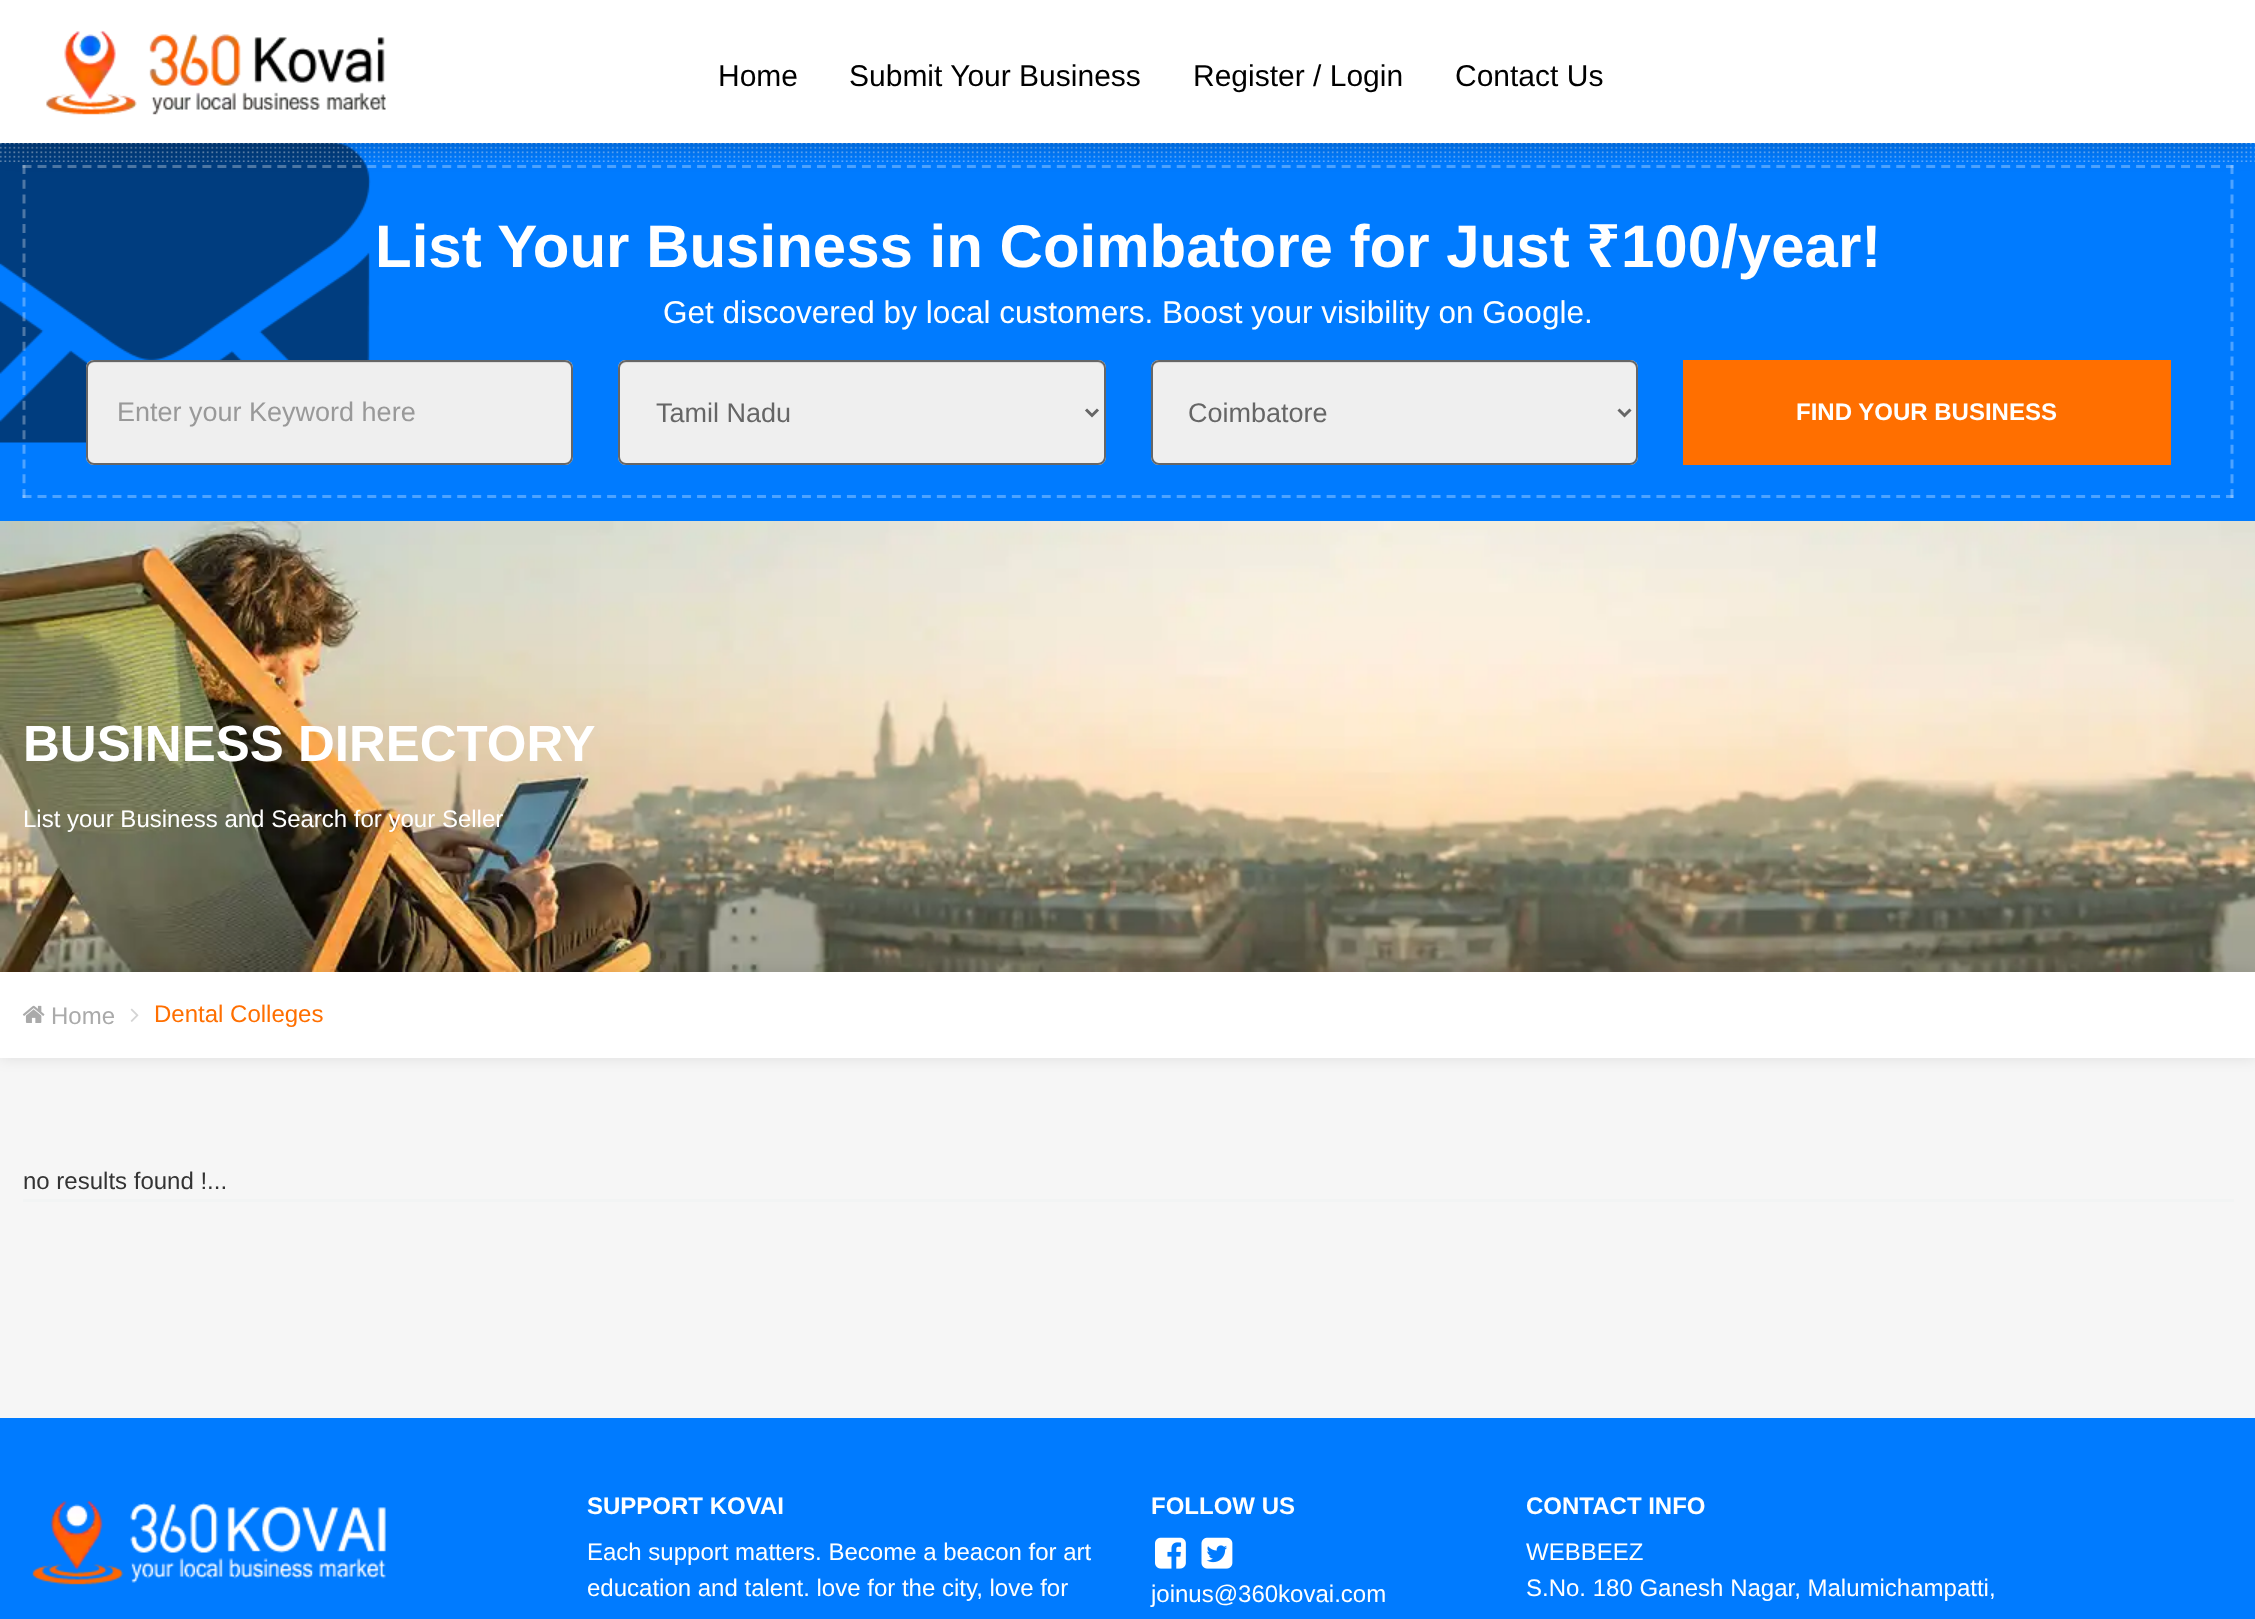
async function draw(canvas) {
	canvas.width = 2255;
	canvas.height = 1619;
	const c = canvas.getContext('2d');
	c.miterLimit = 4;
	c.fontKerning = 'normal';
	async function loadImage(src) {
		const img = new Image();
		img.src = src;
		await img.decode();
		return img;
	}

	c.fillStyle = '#f6f6f6';
	c.fillRect(0, 0, 2255, 1619);
	c.fillStyle = '#007bff';
	c.fillRect(0, 143, 2255, 378);
	c.drawImage(await loadImage('img2.png'), 0, 143, 371, 300);
	c.drawImage(await loadImage('img3.png'), 0, 143, 2255, 19);
	c.beginPath();
	c.moveTo(22.5, 166.5);
	c.lineTo(2233.5, 166.5);
	c.strokeStyle = '#ffffff4d';
	c.lineWidth = 3;
	c.setLineDash([9, 5.99]);
	c.stroke();
	c.beginPath();
	c.moveTo(2232, 165);
	c.lineTo(2232, 498);
	c.setLineDash([9, 5.73]);
	c.stroke();
	c.beginPath();
	c.moveTo(22.5, 496.5);
	c.lineTo(2233.5, 496.5);
	c.setLineDash([9, 5.99]);
	c.stroke();
	c.beginPath();
	c.moveTo(24, 165);
	c.lineTo(24, 498);
	c.setLineDash([9, 5.73]);
	c.stroke();
	c.fillStyle = '#0000004a';
	c.filter = 'blur(13.5px)';
	c.beginPath();
	c.rect(0, 0, 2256, 143);
	c.fill();
	c.filter = 'none';
	c.fillStyle = '#fff';
	c.fillRect(0, 0, 2255, 143);
	c.drawImage(await loadImage('img1.png'), 46, 30, 340, 85);
	c.font = '30px Liberation Sans';
	c.fillStyle = '#000';
	for (const [text, x, y] of [
		['Home', 718, 86],
		['Submit Your Business', 849, 86],
		['Register / Login', 1193, 86],
		['Contact Us', 1455, 86],
	]) {
		c.fillText(text, x, y);
	}
	c.font = 'bold 60px Liberation Sans';
	c.fillStyle = '#fff';
	c.fillText('List Your Business in Coimbatore for Just', 375, 267);
	c.font = 'bold 60px Noto Sans';
	c.fillText('₹', 1586, 267);
	c.font = 'bold 60px Liberation Sans';
	c.fillText('100/year!', 1621, 267);
	c.font = '31.5px Liberation Sans';
	c.fillText('Get discovered by local customers. Boost your visibility on Google.', 663, 323);
	c.fillStyle = '#efefef';
	c.beginPath();
	c.roundRect(86, 360, 487, 105, 8);
	c.fill();
	c.fillStyle = '#ddd';
	c.beginPath();
	c.moveTo(93, 363);
	c.lineTo(566, 363);
	c.bezierCurveTo(569, 363, 572, 366, 572, 369);
	c.bezierCurveTo(572, 365, 570, 362, 566, 362);
	c.lineTo(93, 362);
	c.bezierCurveTo(89, 362, 87, 365, 87, 369);
	c.bezierCurveTo(87, 366, 90, 363, 93, 363);
	c.closePath();
	c.fill();
	c.beginPath();
	c.roundRect(87, 361, 485, 103, 7);
	c.strokeStyle = '#666';
	c.lineWidth = 2;
	c.setLineDash([]);
	c.stroke();
	c.font = '27px Liberation Sans';
	c.fillStyle = '#999';
	c.fillText('Enter your Keyword here', 117, 421);
	c.fillStyle = '#efefef';
	c.beginPath();
	c.roundRect(618, 360, 488, 105, 8);
	c.fill();
	c.fillStyle = '#ddd';
	c.beginPath();
	c.moveTo(626, 363);
	c.lineTo(1098, 363);
	c.bezierCurveTo(1101, 363, 1104, 366, 1104, 369);
	c.bezierCurveTo(1104, 365, 1102, 362, 1098, 362);
	c.lineTo(626, 362);
	c.bezierCurveTo(622, 362, 620, 365, 620, 369);
	c.bezierCurveTo(620, 366, 622, 363, 626, 363);
	c.closePath();
	c.fill();
	c.beginPath();
	c.roundRect(619, 361, 486, 103, 7);
	c.stroke();
	c.beginPath();
	c.moveTo(1086, 409.5);
	c.lineTo(1092, 415.5);
	c.lineTo(1098, 409.5);
	c.lineWidth = 3;
	c.stroke();
	c.fillStyle = '#666';
	c.fillText('Tamil Nadu', 656, 422);
	c.fillStyle = '#efefef';
	c.beginPath();
	c.roundRect(1151, 360, 487, 105, 8);
	c.fill();
	c.fillStyle = '#ddd';
	c.beginPath();
	c.moveTo(1158, 363);
	c.lineTo(1630, 363);
	c.bezierCurveTo(1634, 363, 1636, 366, 1636, 369);
	c.lineTo(1636, 459);
	c.bezierCurveTo(1636, 460, 1636, 461, 1635, 462);
	c.bezierCurveTo(1636, 461, 1637, 460, 1637, 458);
	c.lineTo(1637, 368);
	c.bezierCurveTo(1637, 365, 1634, 362, 1631, 362);
	c.lineTo(1158, 362);
	c.bezierCurveTo(1155, 362, 1152, 365, 1152, 368);
	c.lineTo(1152, 369);
	c.bezierCurveTo(1152, 366, 1155, 363, 1158, 363);
	c.closePath();
	c.fill();
	c.beginPath();
	c.roundRect(1152, 361, 485, 103, 7);
	c.lineWidth = 2;
	c.stroke();
	c.beginPath();
	c.moveTo(1618.5, 409.5);
	c.lineTo(1624.5, 415.5);
	c.lineTo(1630.5, 409.5);
	c.lineWidth = 3;
	c.stroke();
	c.fillStyle = '#666';
	c.fillText('Coimbatore', 1188, 422);
	c.fillStyle = '#ff6f00';
	c.fillRect(1683, 360, 488, 105);
	c.font = 'bold 24px Liberation Sans';
	c.fillStyle = '#fff';
	c.fillText('FIND YOUR BUSINESS', 1796, 420);
	c.drawImage(await loadImage('img4.png'), 0, 521, 2255, 451);
	c.font = 'bold 51px Liberation Sans';
	c.fillText('BUSINESS DIRECTORY', 23, 761);
	c.font = '24px Liberation Sans';
	c.fillText('List your Business and Search for your Seller', 23, 827);
	c.fillStyle = '#0000001a';
	c.filter = 'blur(7.5px)';
	c.beginPath();
	c.rect(0, 972, 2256, 86);
	c.fill();
	c.filter = 'none';
	c.fillStyle = '#fff';
	c.fillRect(0, 972, 2255, 86);
	c.drawImage(await loadImage('img5.png'), 22, 1005, 23, 18);
	c.fillStyle = '#aaa';
	c.fillText('Home', 51, 1024);
	c.drawImage(await loadImage('img6.png'), 130, 1008, 9, 14);
	c.fillStyle = '#ff6f00';
	c.fillText('Dental Colleges', 154, 1022);
	c.fillStyle = '#333';
	c.fillText('no results found !...', 23, 1189);
	c.fillStyle = '#f2f4f4';
	c.fillRect(23, 1199, 2211, 3);
	c.fillStyle = '#007bff';
	c.fillRect(0, 1418, 2255, 201);
	c.drawImage(await loadImage('img7.png'), 32, 1500, 354, 85);
	c.font = 'bold 24px Liberation Sans';
	c.fillStyle = '#fff';
	c.fillText('SUPPORT KOVAI', 587, 1514);
	c.font = '24px Liberation Sans';
	c.fillText('Each support matters. Become a beacon for art', 587, 1560);
	c.fillText('education and talent. love for the city, love for', 587, 1596);
	c.font = 'bold 24px Liberation Sans';
	c.fillText('FOLLOW US', 1151, 1514);
	c.drawImage(await loadImage('img8.png'), 1155, 1537, 31, 32);
	c.drawImage(await loadImage('img9.png'), 1201, 1537, 32, 32);
	c.font = '24px Liberation Sans';
	c.fillText('joinus@360kovai.com', 1151, 1602);
	c.font = 'bold 24px Liberation Sans';
	c.fillText('CONTACT INFO', 1526, 1514);
	c.font = '24px Liberation Sans';
	c.fillText('WEBBEEZ', 1526, 1560);
	c.fillText('S.No. 180 Ganesh Nagar, Malumichampatti,', 1526, 1596);
}

draw(document.querySelector('canvas'));
